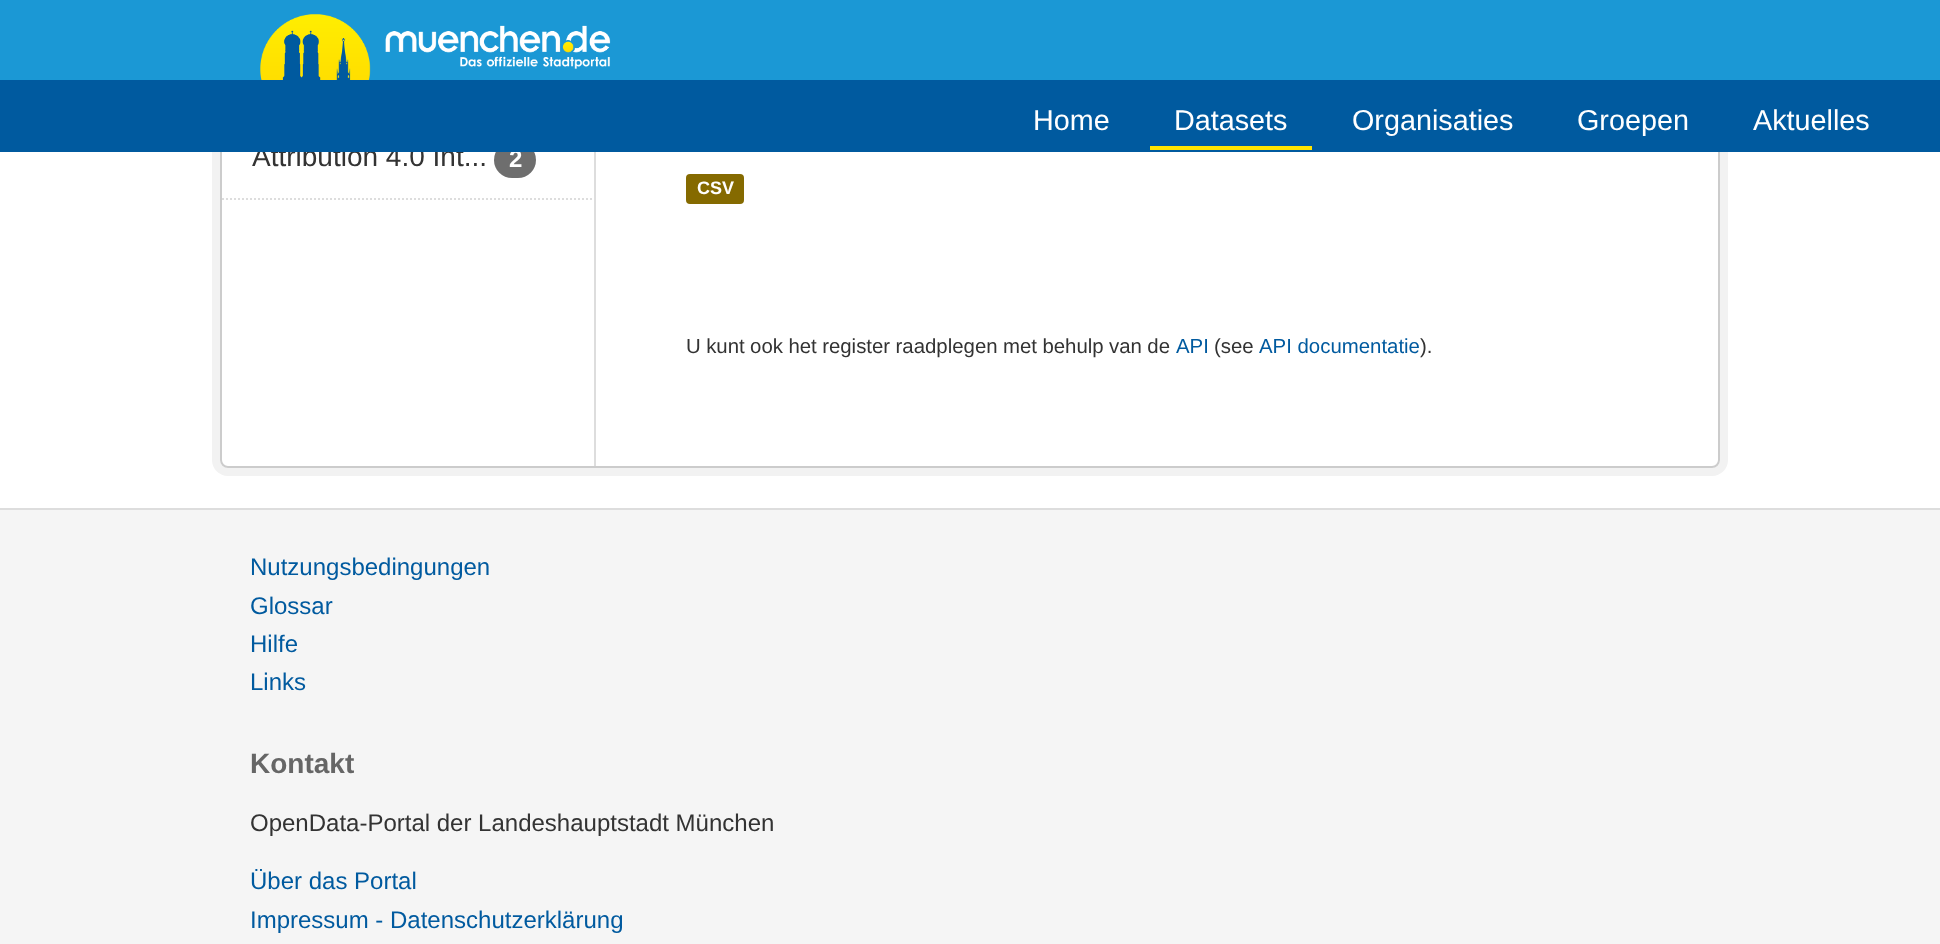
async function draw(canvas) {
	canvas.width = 1940;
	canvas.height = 944;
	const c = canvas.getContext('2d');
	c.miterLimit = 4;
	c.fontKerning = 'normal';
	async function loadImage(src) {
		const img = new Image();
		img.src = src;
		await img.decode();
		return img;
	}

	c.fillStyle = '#fff';
	c.fillRect(0, 0, 1940, 944);
	c.beginPath();
	c.roundRect(216, -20, 1508, 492, 12);
	c.strokeStyle = '#f2f2f2';
	c.lineWidth = 8;
	c.stroke();
	c.beginPath();
	c.roundRect(221, -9, 1498, 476, 7);
	c.fill();
	c.strokeStyle = '#ccc';
	c.lineWidth = 2;
	c.stroke();
	c.fillStyle = '#1b98d5';
	c.fillRect(0, 0, 1940, 80);
	c.drawImage(await loadImage('img1.png'), 260, 14, 351, 66);
	c.font = '28px Liberation Sans';
	c.fillStyle = '#333';
	c.fillText('Attribution 4.0 Int...', 252, 166);
	c.fillStyle = '#6e6e6e';
	c.beginPath();
	c.roundRect(494, 142, 42, 36, 18);
	c.fill();
	c.font = 'bold 24px Liberation Sans';
	c.fillStyle = '#fff';
	c.fillText('2', 509, 167);
	c.fillStyle = '#005a9f';
	c.fillRect(0, 80, 1940, 72);
	c.font = '28.75px Liberation Sans';
	c.fillStyle = '#fff';
	c.fillText('Home', 1033, 130);
	c.fillStyle = '#ffe400';
	c.fillRect(1150, 146, 162, 4);
	c.fillStyle = '#fff';
	for (const [text, x, y] of [
		['Datasets', 1174, 130],
		['Organisaties', 1352, 130],
		['Groepen', 1577, 130],
		['Aktuelles', 1753, 130],
	]) {
		c.fillText(text, x, y);
	}
	c.beginPath();
	c.moveTo(222, 199);
	c.lineTo(594, 199);
	c.strokeStyle = '#ddd';
	c.setLineDash([2, 2]);
	c.stroke();
	c.fillStyle = '#ddd';
	c.fillRect(594, 152, 2, 314);
	c.fillStyle = '#856a00';
	c.beginPath();
	c.roundRect(686, 174, 58, 30, 4);
	c.fill();
	c.font = 'bold 18px Liberation Sans';
	c.fillStyle = '#fff';
	c.fillText('CSV', 697, 194);
	c.wordSpacing = '-0.25px';
	c.font = '20.4px Liberation Sans';
	c.fillStyle = '#333';
	c.fillText('U kunt ook het register raadplegen met behulp van de', 686, 353);
	c.wordSpacing = '0px';
	c.fillStyle = '#005a9f';
	c.fillText('API', 1176, 353);
	c.fillStyle = '#333';
	c.fillText('(see', 1214, 353);
	c.fillStyle = '#005a9f';
	c.fillText('API documentatie', 1259, 353);
	c.fillStyle = '#333';
	c.fillText(').', 1420, 353);
	c.fillStyle = '#f5f5f5';
	c.fillRect(0, 510, 1940, 434);
	c.fillStyle = '#ddd';
	c.fillRect(0, 508, 1940, 2);
	c.font = '24px Liberation Sans';
	c.fillStyle = '#005a9f';
	for (const [text, x, y] of [
		['Nutzungsbedingungen', 250, 575],
		['Glossar', 250, 614],
		['Hilfe', 250, 652],
		['Links', 250, 690],
	]) {
		c.fillText(text, x, y);
	}
	c.font = 'bold 28px Liberation Sans';
	c.fillStyle = '#666';
	c.fillText('Kontakt', 250, 773);
	c.font = '24px Liberation Sans';
	c.fillStyle = '#333';
	c.fillText('OpenData-Portal der Landeshauptstadt München', 250, 831);
	c.fillStyle = '#005a9f';
	c.fillText('Über das Portal', 250, 889);
	c.fillText('Impressum - Datenschutzerklärung', 250, 928);
}

draw(document.querySelector('canvas'));
